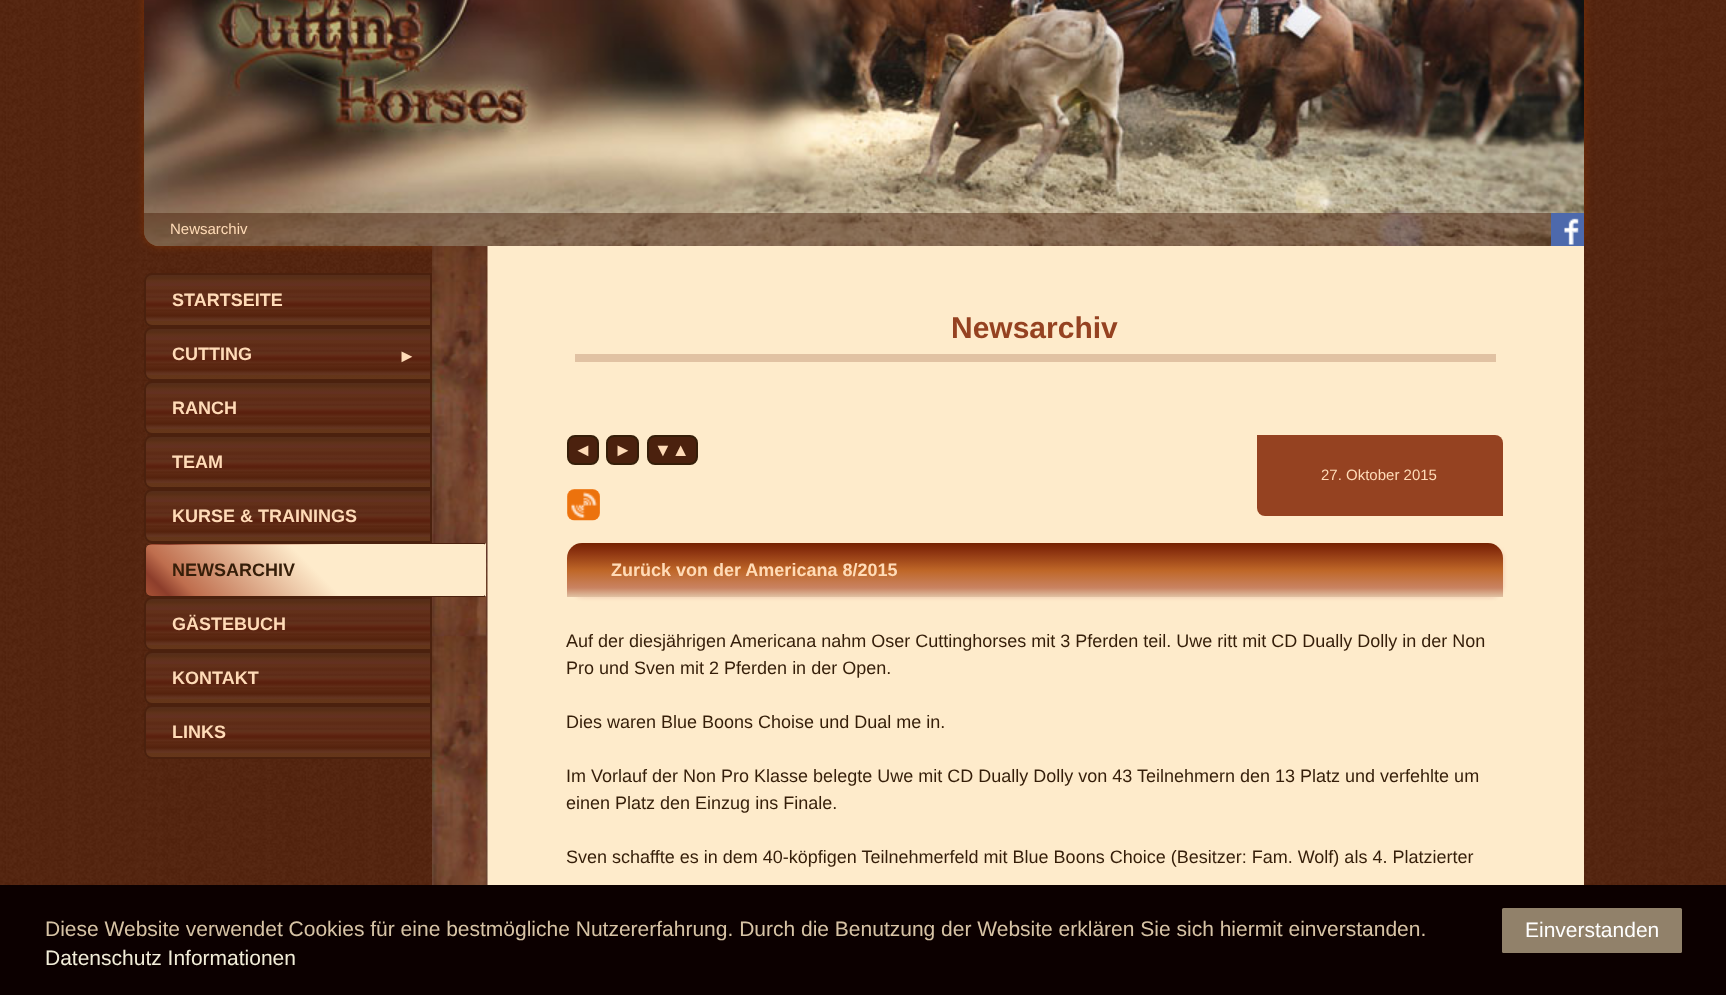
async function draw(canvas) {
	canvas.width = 1726;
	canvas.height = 995;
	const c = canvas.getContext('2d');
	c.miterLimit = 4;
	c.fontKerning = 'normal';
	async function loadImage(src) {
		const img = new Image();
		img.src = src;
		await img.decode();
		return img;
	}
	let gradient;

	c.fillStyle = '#fff';
	c.fillRect(0, 0, 1726, 995);
	c.drawImage(await loadImage('img1.png'), 0, 0, 1726, 885);
	c.fillStyle = '#873300bf';
	c.filter = 'blur(4px)';
	c.beginPath();
	c.roundRect(144, -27, 1440, 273, 15);
	c.fill();
	c.filter = 'none';
	c.drawImage(await loadImage('img2.png'), 144, 0, 1440, 246);
	c.fillStyle = '#4b210e80';
	c.beginPath();
	c.roundRect(144, 213, 1440, 33, [0, 0, 0, 15]);
	c.fill();
	c.font = '15px Liberation Sans';
	c.fillStyle = '#ffdbb7';
	c.fillText('Newsarchiv', 170, 234);
	c.fillStyle = '#4d69ac';
	c.fillRect(1551, 213, 33, 33);
	c.drawImage(await loadImage('img3.png'), 1564, 218, 15, 27);
	c.save();
	c.beginPath();
	c.roundRect(144, 273, 288, 54, [8, 0, 0, 8]);
	c.clip();
	gradient = c.createLinearGradient(288, 275, 288, 326);
	gradient.addColorStop(0, '#562d1b');
	gradient.addColorStop(0.06, '#582e16');
	gradient.addColorStop(0.11, '#60321a');
	gradient.addColorStop(0.2, '#643022');
	gradient.addColorStop(0.23, '#623019');
	gradient.addColorStop(0.26, '#63311a');
	gradient.addColorStop(0.31, '#5e2b16');
	gradient.addColorStop(0.34, '#5e2b16');
	gradient.addColorStop(0.37, '#622f1a');
	gradient.addColorStop(0.4, '#612e1b');
	gradient.addColorStop(0.43, '#5d2a17');
	gradient.addColorStop(0.46, '#61311b');
	gradient.addColorStop(0.49, '#63301b');
	gradient.addColorStop(0.51, '#632c18');
	gradient.addColorStop(0.57, '#5b200e');
	gradient.addColorStop(0.6, '#5a210e');
	gradient.addColorStop(0.66, '#612d18');
	gradient.addColorStop(0.69, '#59250f');
	gradient.addColorStop(0.71, '#5d2913');
	gradient.addColorStop(0.8, '#55220d');
	gradient.addColorStop(0.86, '#61311d');
	gradient.addColorStop(0.89, '#653521');
	gradient.addColorStop(0.91, '#643519');
	gradient.addColorStop(1, '#65361a');
	c.fillStyle = gradient;
	c.fillRect(144, 275, 286, 51);
	c.restore();
	c.beginPath();
	c.roundRect(145, 274, 286, 52, [7, 0, 0, 7]);
	c.strokeStyle = '#4b210e';
	c.lineWidth = 2;
	c.stroke();
	c.font = 'bold 18px Liberation Sans';
	c.fillStyle = '#ffdbb7';
	c.fillText('STARTSEITE', 172, 306);
	c.save();
	c.beginPath();
	c.roundRect(144, 327, 288, 54, [8, 0, 0, 8]);
	c.clip();
	gradient = c.createLinearGradient(288, 329, 288, 380);
	gradient.addColorStop(0, '#562d1b');
	gradient.addColorStop(0.06, '#582e16');
	gradient.addColorStop(0.11, '#60321a');
	gradient.addColorStop(0.2, '#643022');
	gradient.addColorStop(0.23, '#623019');
	gradient.addColorStop(0.26, '#63311a');
	gradient.addColorStop(0.31, '#5e2b16');
	gradient.addColorStop(0.34, '#5e2b16');
	gradient.addColorStop(0.37, '#622f1a');
	gradient.addColorStop(0.4, '#612e1b');
	gradient.addColorStop(0.43, '#5d2a17');
	gradient.addColorStop(0.46, '#61311b');
	gradient.addColorStop(0.49, '#63301b');
	gradient.addColorStop(0.51, '#632c18');
	gradient.addColorStop(0.57, '#5b200e');
	gradient.addColorStop(0.6, '#5a210e');
	gradient.addColorStop(0.66, '#612d18');
	gradient.addColorStop(0.69, '#59250f');
	gradient.addColorStop(0.71, '#5d2913');
	gradient.addColorStop(0.8, '#55220d');
	gradient.addColorStop(0.86, '#61311d');
	gradient.addColorStop(0.89, '#653521');
	gradient.addColorStop(0.91, '#643519');
	gradient.addColorStop(1, '#65361a');
	c.fillStyle = gradient;
	c.fillRect(144, 329, 286, 51);
	c.restore();
	c.beginPath();
	c.roundRect(145, 328, 286, 52, [7, 0, 0, 7]);
	c.stroke();
	c.fillText('CUTTING', 172, 360);
	c.font = '18px Liberation Sans';
	c.fillText('►', 398, 362);
	c.save();
	c.beginPath();
	c.roundRect(144, 381, 288, 54, [8, 0, 0, 8]);
	c.clip();
	gradient = c.createLinearGradient(288, 383, 288, 434);
	gradient.addColorStop(0, '#562d1b');
	gradient.addColorStop(0.06, '#582e16');
	gradient.addColorStop(0.11, '#60321a');
	gradient.addColorStop(0.2, '#643022');
	gradient.addColorStop(0.23, '#623019');
	gradient.addColorStop(0.26, '#63311a');
	gradient.addColorStop(0.31, '#5e2b16');
	gradient.addColorStop(0.34, '#5e2b16');
	gradient.addColorStop(0.37, '#622f1a');
	gradient.addColorStop(0.4, '#612e1b');
	gradient.addColorStop(0.43, '#5d2a17');
	gradient.addColorStop(0.46, '#61311b');
	gradient.addColorStop(0.49, '#63301b');
	gradient.addColorStop(0.51, '#632c18');
	gradient.addColorStop(0.57, '#5b200e');
	gradient.addColorStop(0.6, '#5a210e');
	gradient.addColorStop(0.66, '#612d18');
	gradient.addColorStop(0.69, '#59250f');
	gradient.addColorStop(0.71, '#5d2913');
	gradient.addColorStop(0.8, '#55220d');
	gradient.addColorStop(0.86, '#61311d');
	gradient.addColorStop(0.89, '#653521');
	gradient.addColorStop(0.91, '#643519');
	gradient.addColorStop(1, '#65361a');
	c.fillStyle = gradient;
	c.fillRect(144, 383, 286, 51);
	c.restore();
	c.beginPath();
	c.roundRect(145, 382, 286, 52, [7, 0, 0, 7]);
	c.stroke();
	c.font = 'bold 18px Liberation Sans';
	c.fillText('RANCH', 172, 414);
	c.save();
	c.beginPath();
	c.roundRect(144, 435, 288, 54, [8, 0, 0, 8]);
	c.clip();
	gradient = c.createLinearGradient(288, 437, 288, 488);
	gradient.addColorStop(0, '#562d1b');
	gradient.addColorStop(0.06, '#582e16');
	gradient.addColorStop(0.11, '#60321a');
	gradient.addColorStop(0.2, '#643022');
	gradient.addColorStop(0.23, '#623019');
	gradient.addColorStop(0.26, '#63311a');
	gradient.addColorStop(0.31, '#5e2b16');
	gradient.addColorStop(0.34, '#5e2b16');
	gradient.addColorStop(0.37, '#622f1a');
	gradient.addColorStop(0.4, '#612e1b');
	gradient.addColorStop(0.43, '#5d2a17');
	gradient.addColorStop(0.46, '#61311b');
	gradient.addColorStop(0.49, '#63301b');
	gradient.addColorStop(0.51, '#632c18');
	gradient.addColorStop(0.57, '#5b200e');
	gradient.addColorStop(0.6, '#5a210e');
	gradient.addColorStop(0.66, '#612d18');
	gradient.addColorStop(0.69, '#59250f');
	gradient.addColorStop(0.71, '#5d2913');
	gradient.addColorStop(0.8, '#55220d');
	gradient.addColorStop(0.86, '#61311d');
	gradient.addColorStop(0.89, '#653521');
	gradient.addColorStop(0.91, '#643519');
	gradient.addColorStop(1, '#65361a');
	c.fillStyle = gradient;
	c.fillRect(144, 437, 286, 51);
	c.restore();
	c.beginPath();
	c.roundRect(145, 436, 286, 52, [7, 0, 0, 7]);
	c.stroke();
	c.fillText('TEAM', 172, 468);
	c.save();
	c.beginPath();
	c.roundRect(144, 489, 288, 54, [8, 0, 0, 8]);
	c.clip();
	gradient = c.createLinearGradient(288, 491, 288, 542);
	gradient.addColorStop(0, '#562d1b');
	gradient.addColorStop(0.06, '#582e16');
	gradient.addColorStop(0.11, '#60321a');
	gradient.addColorStop(0.2, '#643022');
	gradient.addColorStop(0.23, '#623019');
	gradient.addColorStop(0.26, '#63311a');
	gradient.addColorStop(0.31, '#5e2b16');
	gradient.addColorStop(0.34, '#5e2b16');
	gradient.addColorStop(0.37, '#622f1a');
	gradient.addColorStop(0.4, '#612e1b');
	gradient.addColorStop(0.43, '#5d2a17');
	gradient.addColorStop(0.46, '#61311b');
	gradient.addColorStop(0.49, '#63301b');
	gradient.addColorStop(0.51, '#632c18');
	gradient.addColorStop(0.57, '#5b200e');
	gradient.addColorStop(0.6, '#5a210e');
	gradient.addColorStop(0.66, '#612d18');
	gradient.addColorStop(0.69, '#59250f');
	gradient.addColorStop(0.71, '#5d2913');
	gradient.addColorStop(0.8, '#55220d');
	gradient.addColorStop(0.86, '#61311d');
	gradient.addColorStop(0.89, '#653521');
	gradient.addColorStop(0.91, '#643519');
	gradient.addColorStop(1, '#65361a');
	c.fillStyle = gradient;
	c.fillRect(144, 491, 286, 51);
	c.restore();
	c.beginPath();
	c.roundRect(145, 490, 286, 52, [7, 0, 0, 7]);
	c.stroke();
	c.fillText('KURSE & TRAININGS', 172, 522);
	c.fillStyle = '#feebcb';
	c.fillRect(487, 246, 1097, 639);
	c.drawImage(await loadImage('img4.png'), 432, 246, 56, 639);
	c.save();
	c.beginPath();
	c.roundRect(144, 543, 342, 54, [8, 0, 0, 8]);
	c.clip();
	gradient = c.createLinearGradient(218, 617, 413, 422);
	gradient.addColorStop(0, '#a85235');
	gradient.addColorStop(0.06, '#8c3d2b');
	gradient.addColorStop(0.13, '#bf6e4e');
	gradient.addColorStop(0.5, '#feebcb');
	gradient.addColorStop(1, '#feebcb');
	c.fillStyle = gradient;
	c.fillRect(146, 543, 339, 2);
	gradient = c.createLinearGradient(218, 668, 413, 473);
	gradient.addColorStop(0, '#a85235');
	gradient.addColorStop(0.06, '#8c3d2b');
	gradient.addColorStop(0.13, '#bf6e4e');
	gradient.addColorStop(0.5, '#feebcb');
	gradient.addColorStop(1, '#feebcb');
	c.fillStyle = gradient;
	c.fillRect(146, 545, 339, 51);
	c.restore();
	c.fillStyle = '#4b210e';
	c.beginPath();
	c.moveTo(152, 543);
	c.bezierCurveTo(149, 543, 147, 544, 146, 545);
	c.lineTo(147, 546);
	c.bezierCurveTo(148, 545, 150, 544, 152, 544);
	c.lineTo(484, 544);
	c.lineTo(484, 545);
	c.lineTo(486, 543);
	c.closePath();
	c.fill();
	c.fillStyle = '#feebcb';
	c.beginPath();
	c.moveTo(486, 543);
	c.lineTo(484, 545);
	c.lineTo(484, 595);
	c.lineTo(486, 597);
	c.closePath();
	c.fill();
	c.fillStyle = '#4b210e';
	c.beginPath();
	c.moveTo(486, 597);
	c.lineTo(484, 595);
	c.lineTo(484, 596);
	c.lineTo(152, 596);
	c.bezierCurveTo(150, 596, 148, 595, 147, 594);
	c.lineTo(146, 595);
	c.bezierCurveTo(147, 596, 149, 597, 152, 597);
	c.closePath();
	c.fill();
	c.beginPath();
	c.moveTo(144, 550);
	c.lineTo(144, 590);
	c.bezierCurveTo(144, 592, 145, 594, 146, 595);
	c.lineTo(147, 594);
	c.bezierCurveTo(146, 593, 146, 591, 146, 590);
	c.lineTo(146, 550);
	c.bezierCurveTo(146, 549, 146, 547, 147, 546);
	c.lineTo(146, 545);
	c.bezierCurveTo(145, 546, 144, 548, 144, 550);
	c.closePath();
	c.fill();
	c.fillStyle = '#351e09';
	c.fillText('NEWSARCHIV', 172, 576);
	c.save();
	c.beginPath();
	c.roundRect(144, 597, 288, 54, [8, 0, 0, 8]);
	c.clip();
	gradient = c.createLinearGradient(288, 599, 288, 650);
	gradient.addColorStop(0, '#562d1b');
	gradient.addColorStop(0.06, '#582e16');
	gradient.addColorStop(0.11, '#60321a');
	gradient.addColorStop(0.2, '#643022');
	gradient.addColorStop(0.23, '#623019');
	gradient.addColorStop(0.26, '#63311a');
	gradient.addColorStop(0.31, '#5e2b16');
	gradient.addColorStop(0.34, '#5e2b16');
	gradient.addColorStop(0.37, '#622f1a');
	gradient.addColorStop(0.4, '#612e1b');
	gradient.addColorStop(0.43, '#5d2a17');
	gradient.addColorStop(0.46, '#61311b');
	gradient.addColorStop(0.49, '#63301b');
	gradient.addColorStop(0.51, '#632c18');
	gradient.addColorStop(0.57, '#5b200e');
	gradient.addColorStop(0.6, '#5a210e');
	gradient.addColorStop(0.66, '#612d18');
	gradient.addColorStop(0.69, '#59250f');
	gradient.addColorStop(0.71, '#5d2913');
	gradient.addColorStop(0.8, '#55220d');
	gradient.addColorStop(0.86, '#61311d');
	gradient.addColorStop(0.89, '#653521');
	gradient.addColorStop(0.91, '#643519');
	gradient.addColorStop(1, '#65361a');
	c.fillStyle = gradient;
	c.fillRect(144, 599, 286, 51);
	c.restore();
	c.beginPath();
	c.roundRect(145, 598, 286, 52, [7, 0, 0, 7]);
	c.stroke();
	c.fillStyle = '#ffdbb7';
	c.fillText('GÄSTEBUCH', 172, 630);
	c.save();
	c.beginPath();
	c.roundRect(144, 651, 288, 54, [8, 0, 0, 8]);
	c.clip();
	gradient = c.createLinearGradient(288, 653, 288, 704);
	gradient.addColorStop(0, '#562d1b');
	gradient.addColorStop(0.06, '#582e16');
	gradient.addColorStop(0.11, '#60321a');
	gradient.addColorStop(0.2, '#643022');
	gradient.addColorStop(0.23, '#623019');
	gradient.addColorStop(0.26, '#63311a');
	gradient.addColorStop(0.31, '#5e2b16');
	gradient.addColorStop(0.34, '#5e2b16');
	gradient.addColorStop(0.37, '#622f1a');
	gradient.addColorStop(0.4, '#612e1b');
	gradient.addColorStop(0.43, '#5d2a17');
	gradient.addColorStop(0.46, '#61311b');
	gradient.addColorStop(0.49, '#63301b');
	gradient.addColorStop(0.51, '#632c18');
	gradient.addColorStop(0.57, '#5b200e');
	gradient.addColorStop(0.6, '#5a210e');
	gradient.addColorStop(0.66, '#612d18');
	gradient.addColorStop(0.69, '#59250f');
	gradient.addColorStop(0.71, '#5d2913');
	gradient.addColorStop(0.8, '#55220d');
	gradient.addColorStop(0.86, '#61311d');
	gradient.addColorStop(0.89, '#653521');
	gradient.addColorStop(0.91, '#643519');
	gradient.addColorStop(1, '#65361a');
	c.fillStyle = gradient;
	c.fillRect(144, 653, 286, 51);
	c.restore();
	c.beginPath();
	c.roundRect(145, 652, 286, 52, [7, 0, 0, 7]);
	c.stroke();
	c.fillText('KONTAKT', 172, 684);
	c.save();
	c.beginPath();
	c.roundRect(144, 705, 288, 54, [8, 0, 0, 8]);
	c.clip();
	gradient = c.createLinearGradient(288, 707, 288, 758);
	gradient.addColorStop(0, '#562d1b');
	gradient.addColorStop(0.06, '#582e16');
	gradient.addColorStop(0.11, '#60321a');
	gradient.addColorStop(0.2, '#643022');
	gradient.addColorStop(0.23, '#623019');
	gradient.addColorStop(0.26, '#63311a');
	gradient.addColorStop(0.31, '#5e2b16');
	gradient.addColorStop(0.34, '#5e2b16');
	gradient.addColorStop(0.37, '#622f1a');
	gradient.addColorStop(0.4, '#612e1b');
	gradient.addColorStop(0.43, '#5d2a17');
	gradient.addColorStop(0.46, '#61311b');
	gradient.addColorStop(0.49, '#63301b');
	gradient.addColorStop(0.51, '#632c18');
	gradient.addColorStop(0.57, '#5b200e');
	gradient.addColorStop(0.6, '#5a210e');
	gradient.addColorStop(0.66, '#612d18');
	gradient.addColorStop(0.69, '#59250f');
	gradient.addColorStop(0.71, '#5d2913');
	gradient.addColorStop(0.8, '#55220d');
	gradient.addColorStop(0.86, '#61311d');
	gradient.addColorStop(0.89, '#653521');
	gradient.addColorStop(0.91, '#643519');
	gradient.addColorStop(1, '#65361a');
	c.fillStyle = gradient;
	c.fillRect(144, 707, 286, 51);
	c.restore();
	c.beginPath();
	c.roundRect(145, 706, 286, 52, [7, 0, 0, 7]);
	c.stroke();
	c.fillText('LINKS', 172, 738);
	c.font = 'bold 30px Liberation Sans';
	c.fillStyle = '#954221';
	c.fillText('Newsarchiv', 951, 338);
	c.fillStyle = '#e1c2a3';
	c.fillRect(575, 354, 921, 8);
	c.fillStyle = '#4b210e';
	c.beginPath();
	c.roundRect(568, 436, 30, 28, 7);
	c.fill();
	c.strokeStyle = '#351e09';
	c.stroke();
	c.font = '18px Liberation Sans';
	c.fillStyle = '#ffdbb7';
	c.fillText('◄', 574, 456);
	c.fillStyle = '#4b210e';
	c.beginPath();
	c.roundRect(607, 436, 31, 28, 7);
	c.fill();
	c.stroke();
	c.fillStyle = '#ffdbb7';
	c.fillText('►', 614, 456);
	c.fillStyle = '#4b210e';
	c.beginPath();
	c.roundRect(648, 436, 49, 28, 7);
	c.fill();
	c.stroke();
	c.fillStyle = '#ffdbb7';
	c.fillText('▼▲', 654, 456);
	c.fillStyle = '#954221';
	c.beginPath();
	c.roundRect(1257, 435, 246, 81, [0, 8, 0, 8]);
	c.fill();
	c.font = '15px Liberation Sans';
	c.fillStyle = '#ffdbb7';
	c.fillText('27. Oktober 2015', 1321, 480);
	c.fillStyle = '#f7d8bb';
	c.filter = 'blur(1.5px)';
	c.beginPath();
	c.roundRect(569, 545, 936, 54, 15);
	c.fill();
	c.filter = 'none';
	gradient = c.createLinearGradient(1035, 543, 1035, 597);
	gradient.addColorStop(0, '#752201');
	gradient.addColorStop(0.16, '#8c3310');
	gradient.addColorStop(0.51, '#bf6728');
	gradient.addColorStop(0.83, '#c98362');
	gradient.addColorStop(1, '#e1c2a3');
	c.fillStyle = gradient;
	c.beginPath();
	c.roundRect(567, 543, 936, 54, [15, 15, 0, 0]);
	c.fill();
	c.drawImage(await loadImage('img5.png'), 567, 489, 33, 32);
	c.font = 'bold 18px Liberation Sans';
	c.fillStyle = '#ffdbb7';
	c.fillText('Zurück von der Americana 8/2015', 611, 576);
	c.font = '18px Liberation Sans';
	c.fillStyle = '#351e09';
	for (const [text, x, y] of [
		['Auf der diesjährigen Americana nahm Oser Cuttinghorses mit 3 Pferden teil. Uwe ritt mit CD Dually Dolly in der Non', 566, 647],
		['Pro und Sven mit 2 Pferden in der Open.', 566, 674],
		['Dies waren Blue Boons Choise und Dual me in.', 566, 728],
		['Im Vorlauf der Non Pro Klasse belegte Uwe mit CD Dually Dolly von 43 Teilnehmern den 13 Platz und verfehlte um', 566, 782],
		['einen Platz den Einzug ins Finale.', 566, 809],
		['Sven schaffte es in dem 40-köpfigen Teilnehmerfeld mit Blue Boons Choice (Besitzer: Fam. Wolf) als 4. Platzierter', 566, 863],
	]) {
		c.fillText(text, x, y);
	}
	c.fillStyle = '#0c0000';
	c.fillRect(0, 885, 1726, 110);
	c.font = '21px Liberation Sans';
	c.fillStyle = '#d7c3a5';
	c.fillText('Diese Website verwendet Cookies für eine bestmögliche Nutzererfahrung. Durch die Benutzung der Website erklären Sie sich hiermit einverstanden.', 45, 936);
	c.fillStyle = '#f2edd8';
	c.fillText('Datenschutz Informationen', 45, 965);
	c.fillStyle = '#91816a';
	c.beginPath();
	c.roundRect(1502, 908, 180, 45, 1.5);
	c.fill();
	c.fillStyle = '#fff';
	c.fillText('Einverstanden', 1525, 937);
}

draw(document.querySelector('canvas'));
